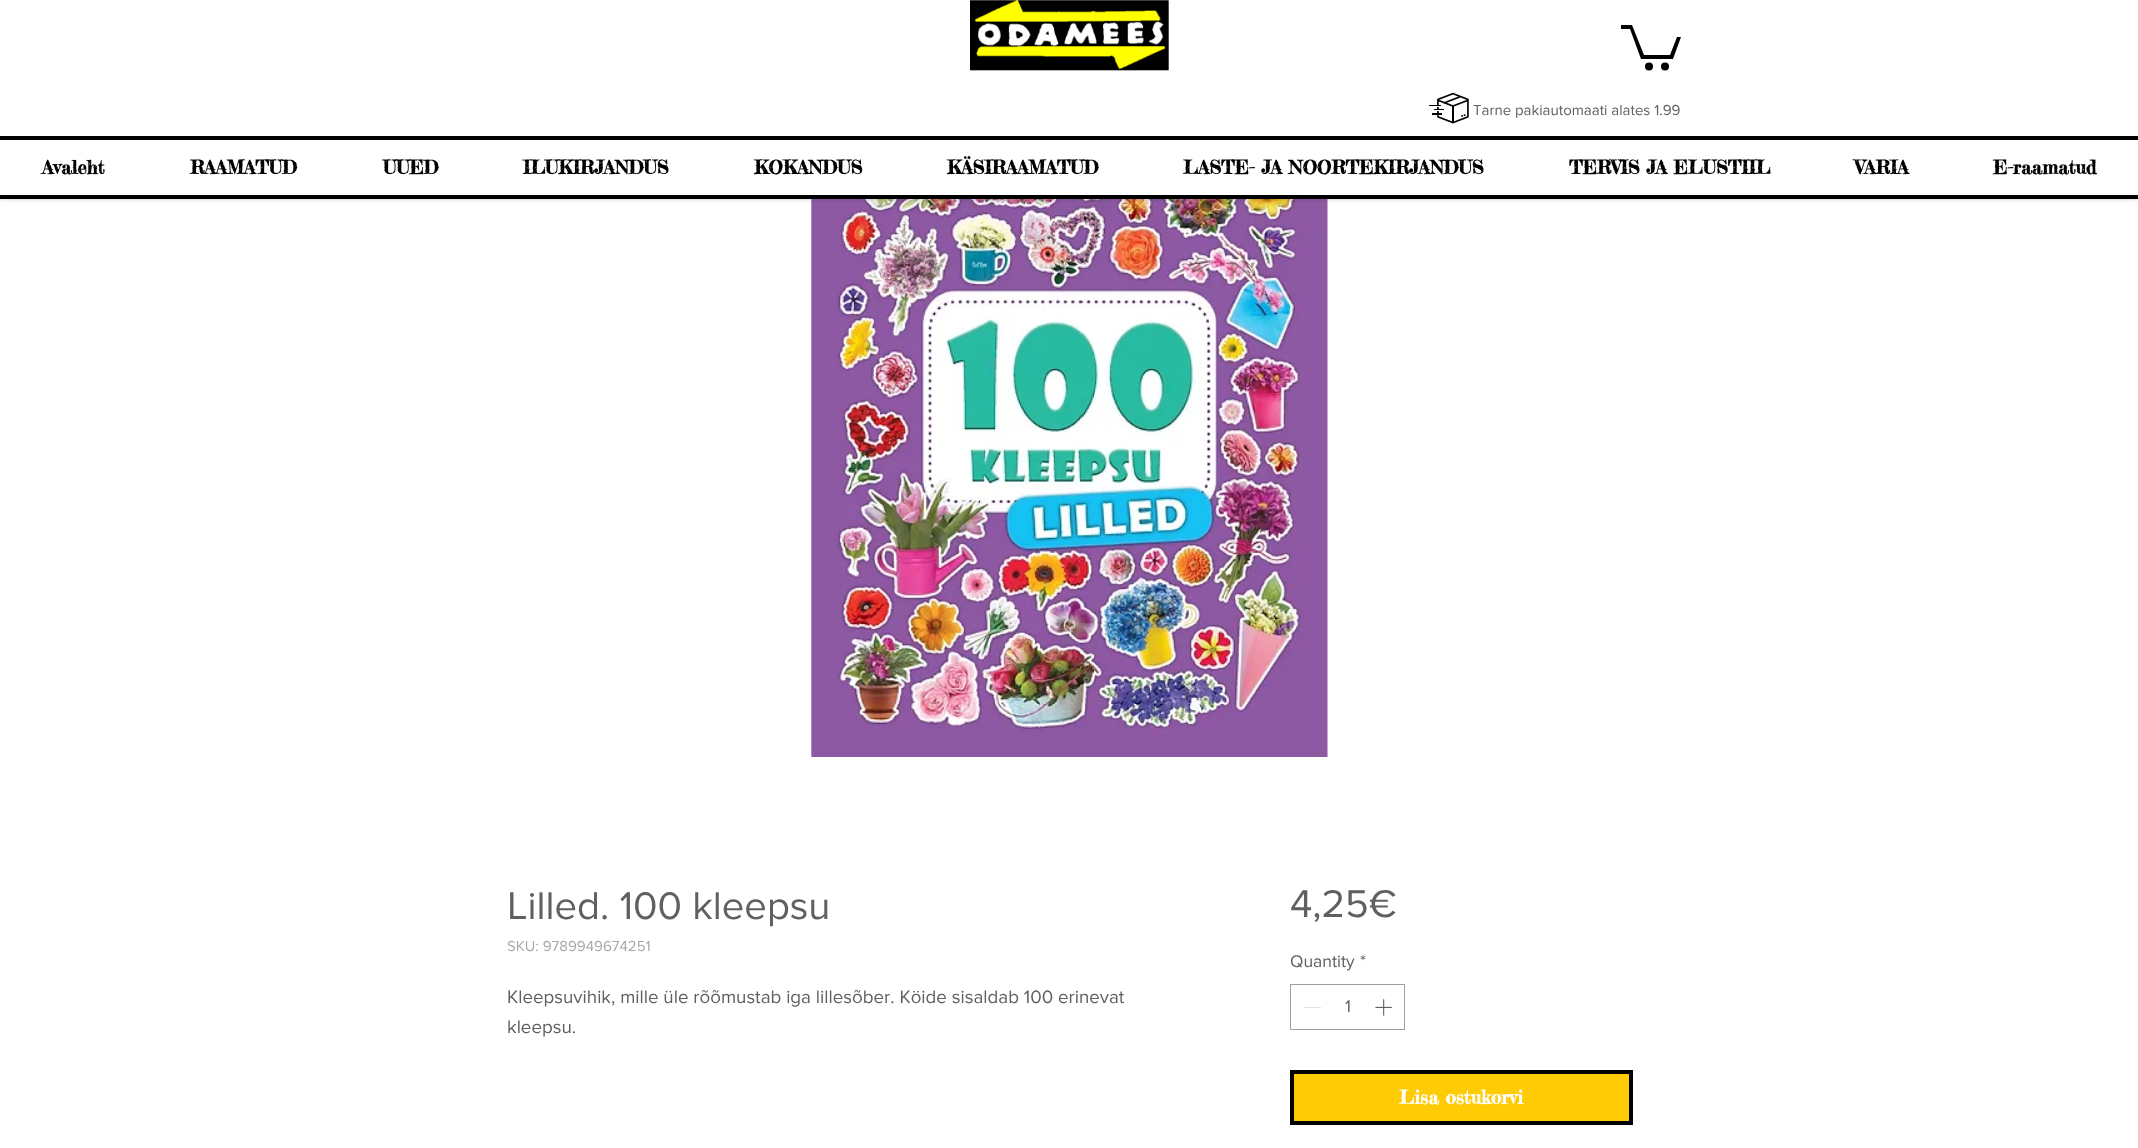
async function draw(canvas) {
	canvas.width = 2138;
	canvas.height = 1148;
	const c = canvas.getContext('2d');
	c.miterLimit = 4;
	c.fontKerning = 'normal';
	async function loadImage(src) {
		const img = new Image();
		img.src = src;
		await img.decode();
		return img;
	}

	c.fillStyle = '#fff';
	c.fillRect(0, 0, 2138, 1148);
	c.drawImage(await loadImage('img3.png'), 811, 199, 517, 558);
	c.fillStyle = '#000000b3';
	c.filter = 'blur(3px)';
	c.beginPath();
	c.rect(0, 0, 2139, 196);
	c.fill();
	c.filter = 'none';
	c.fillStyle = '#fff';
	c.fillRect(0, 0, 2138, 195);
	c.drawImage(await loadImage('img1.png'), 970, 0, 199, 71);
	c.fillStyle = '#000';
	c.beginPath();
	c.moveTo(1681, 37);
	c.lineTo(1673, 59);
	c.lineTo(1641, 59);
	c.lineTo(1630, 29);
	c.lineTo(1621, 29);
	c.lineTo(1621, 25);
	c.lineTo(1632, 25);
	c.lineTo(1644, 55);
	c.lineTo(1670, 55);
	c.lineTo(1677, 37);
	c.fill();
	c.beginPath();
	c.arc(1665, 66.5, 4, 0, 2 * Math.PI);
	c.fill();
	c.beginPath();
	c.arc(1649, 66.5, 4, 0, 2 * Math.PI);
	c.fill();
	c.drawImage(await loadImage('img2.png'), 1429, 92, 40, 32);
	c.font = '15px "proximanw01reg"';
	c.fillStyle = '#606060';
	c.fillText('Tarne pakiautomaati alates 1.99', 1473, 115);
	c.fillStyle = '#000';
	c.fillRect(0, 136, 2138, 4);
	c.fillRect(0, 195, 2138, 4);
	c.font = 'bold 18.75px Fredericka the Great';
	for (const [text, x, y] of [
		['Avaleht', 42, 174],
		['RAAMATUD', 190, 174],
		['UUED', 383, 174],
		['ILUKIRJANDUS', 523, 174],
		['KOKANDUS', 754, 174],
		['KÄSIRAAMATUD', 947, 174],
		['LASTE- JA NOORTEKIRJANDUS', 1183, 174],
		['TERVIS JA ELUSTIIL', 1569, 174],
		['VARIA', 1855, 174],
		['E-raamatud', 1993, 174],
	]) {
		c.fillText(text, x, y);
	}
	c.font = '40px "proximanw01reg"';
	c.fillStyle = '#606060';
	c.fillText('Lilled. 100 kleepsu', 507, 919);
	c.font = '15px "proximanw01reg"';
	c.fillStyle = '#a8a8a8';
	c.fillText('SKU: 9789949674251', 507, 951);
	c.font = '18.75px "proximanw01reg"';
	c.fillStyle = '#606060';
	c.fillText('Kleepsuvihik, mille üle rõõmustab iga lillesõber. Köide sisaldab 100 erinevat', 507, 1003);
	c.fillText('kleepsu.', 507, 1033);
	c.font = '40px "proximanw01reg"';
	c.fillText('4,25€', 1290, 917);
	c.font = '17.5px "proximanw01reg"';
	c.fillText('Quantity', 1290, 967);
	c.fillText('*', 1360, 967);
	c.strokeStyle = '#a0a0a0';
	c.strokeRect(1290.5, 984.5, 114, 45);
	c.fillStyle = '#e3e3e3';
	c.fillRect(1304, 1007, 17, 1);
	c.fillStyle = '#606060';
	c.fillText('1', 1345, 1012);
	c.drawImage(await loadImage('img4.png'), 1375, 999, 17, 17);
	c.fillStyle = '#ffcb05';
	c.beginPath();
	c.rect(1292, 1072, 339, 51);
	c.fill();
	c.strokeStyle = '#000';
	c.lineWidth = 4;
	c.stroke();
	c.font = 'bold 18.75px Fredericka the Great';
	c.fillStyle = '#fff';
	c.fillText('Lisa ostukorvi', 1399, 1104);
}

draw(document.querySelector('canvas'));
